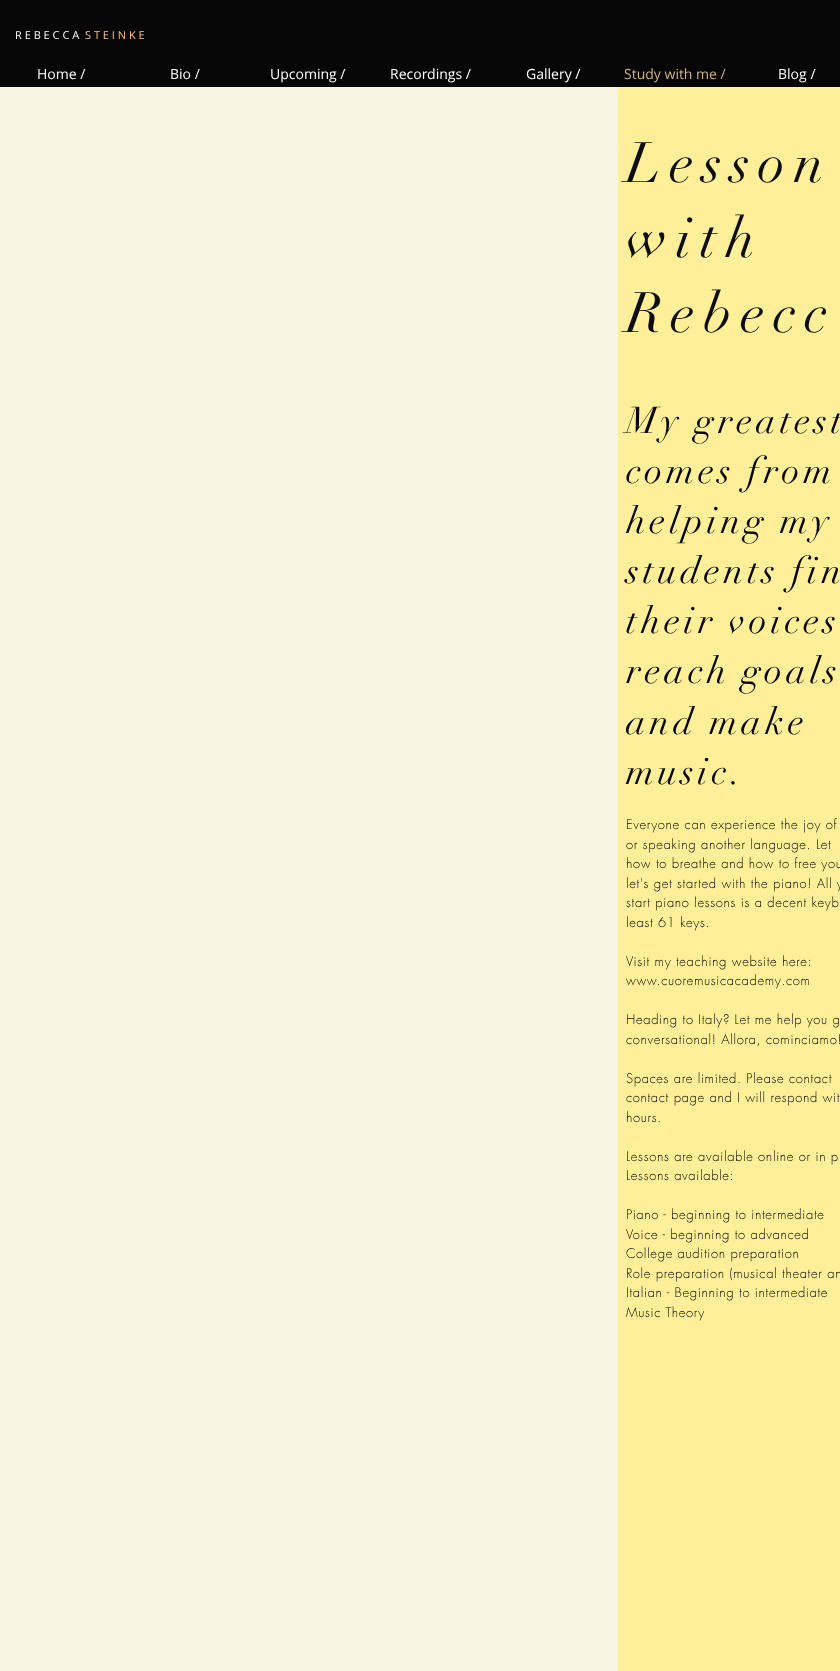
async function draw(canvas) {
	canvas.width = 840;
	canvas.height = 1671;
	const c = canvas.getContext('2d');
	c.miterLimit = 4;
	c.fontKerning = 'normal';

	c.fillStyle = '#070606';
	c.fillRect(0, 0, 840, 1671);
	c.font = '11px Open Sans';
	c.fillStyle = '#fff';
	c.fillText('R E B E C C A', 15, 39);
	c.fillStyle = '#ffc28c';
	c.fillText('S T E I N K E', 85, 39);
	c.font = '14px Open Sans';
	c.fillStyle = '#fff';
	for (const [text, x, y] of [
		['Home /', 37, 79],
		['Bio /', 170, 79],
		['Upcoming /', 270, 79],
		['Recordings /', 390, 79],
		['Gallery /', 526, 79],
	]) {
		c.fillText(text, x, y);
	}
	c.fillStyle = '#cfb486';
	c.fillText('Study with me /', 624, 79);
	c.fillStyle = '#fff';
	c.fillText('Blog /', 778, 79);
	c.fillStyle = '#f7f5e1';
	c.fillRect(0, 87, 618, 1584);
	c.fillStyle = '#ffef98';
	c.fillRect(618, 87, 222, 1584);
	c.letterSpacing = '8.5px';
	c.font = '56px didot';
	c.fillStyle = '#0d0d0d';
	for (const [text, x, y] of [
		['Lesson', 626, 182],
		['with', 626, 257],
		['Rebecc', 626, 332],
	]) {
		c.fillText(text, x, y);
	}
	c.letterSpacing = '3.75px';
	c.font = '37px didot';
	c.fillStyle = '#070606';
	for (const [text, x, y] of [
		['My greatest', 626, 433],
		['comes from', 626, 483],
		['helping my', 626, 533],
		['students fin', 626, 583],
	]) {
		c.fillText(text, x, y);
	}
	c.wordSpacing = '-1px';
	c.fillText('their voices', 626, 633);
	c.fillText('reach goals', 626, 683);
	c.wordSpacing = '0px';
	c.fillText('and make', 626, 734);
	c.fillText('music.', 626, 784);
	c.letterSpacing = '0.65px';
	c.font = '300 13px futura';
	for (const [text, x, y] of [
		['Everyone can experience the joy of', 626, 829],
		['or speaking another language. Let', 626, 849],
		['how to breathe and how to free you', 626, 868],
		['let\'s get started with the piano! All y', 626, 888],
		['start piano lessons is a decent keyb', 626, 907],
		['least 61 keys.', 626, 927],
		['Visit my teaching website here:', 626, 966],
		['www.cuoremusicacademy.com', 626, 985],
		['Heading to Italy? Let me help you g', 626, 1024],
		['conversational! Allora, cominciamo!', 626, 1044],
		['Spaces are limited. Please contact', 626, 1083],
		['contact page and I will respond wit', 626, 1102],
		['hours.', 626, 1122],
		['Lessons are available online or in p', 626, 1161],
		['Lessons available:', 626, 1180],
		['Piano - beginning to intermediate', 626, 1219],
		['Voice - beginning to advanced', 626, 1239],
		['College audition preparation', 626, 1258],
		['Role preparation (musical theater an', 626, 1278],
		['Italian - Beginning to intermediate', 626, 1297],
		['Music Theory', 626, 1317],
	]) {
		c.fillText(text, x, y);
	}
}

draw(document.querySelector('canvas'));
